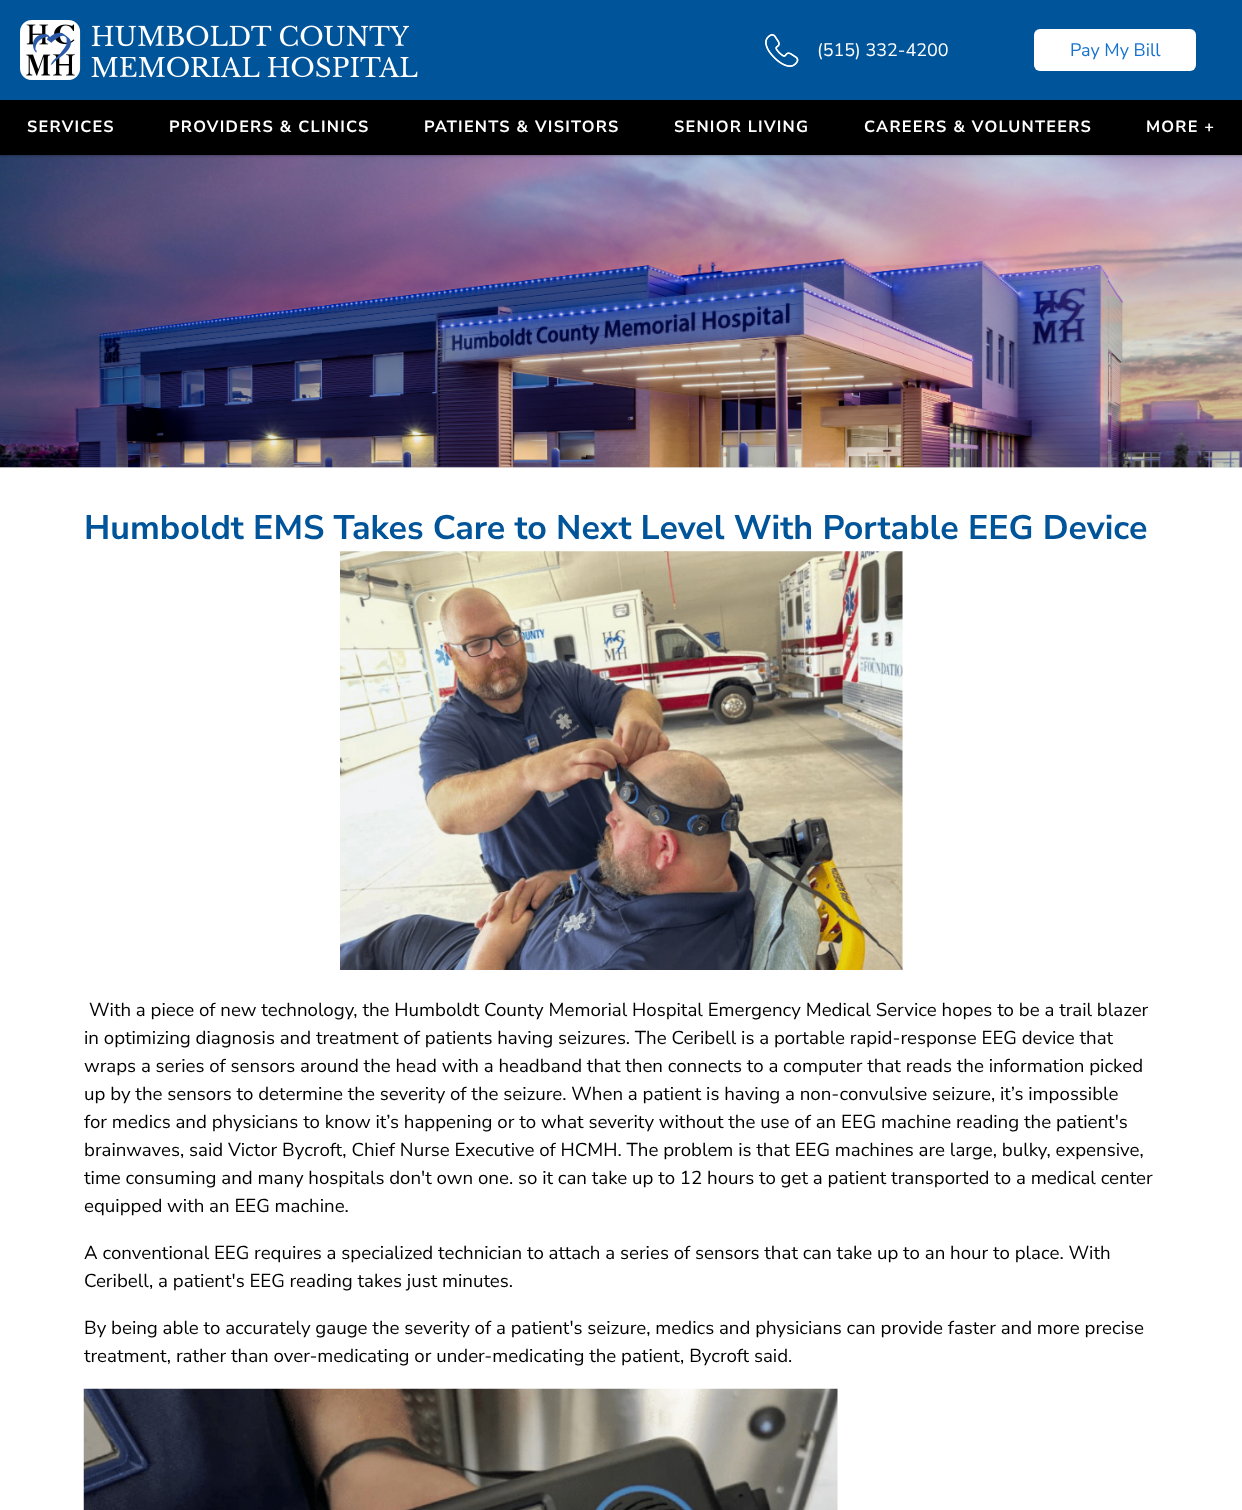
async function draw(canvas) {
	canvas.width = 1242;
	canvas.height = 1510;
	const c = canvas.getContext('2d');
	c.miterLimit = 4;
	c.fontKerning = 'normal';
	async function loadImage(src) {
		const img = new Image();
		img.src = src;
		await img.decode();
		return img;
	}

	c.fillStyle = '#fff';
	c.fillRect(0, 0, 1242, 1510);
	c.fillStyle = '#e8e8e8';
	c.fillRect(0, 467, 1242, 1);
	c.drawImage(await loadImage('img3.png'), 0, 155, 1242, 313);
	c.fillStyle = '#00000040';
	c.filter = 'blur(1px)';
	c.beginPath();
	c.rect(0, 1, 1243, 155);
	c.fill();
	c.filter = 'none';
	c.fillStyle = '#005499';
	c.fillRect(0, 0, 1242, 100);
	c.drawImage(await loadImage('img1.png'), 20, 20, 398, 60);
	c.drawImage(await loadImage('img2.png'), 765, 34, 34, 33);
	c.font = '18px Nunito Sans';
	c.fillStyle = '#fff';
	c.fillText('(515) 332-4200', 817, 56);
	c.beginPath();
	c.roundRect(1034, 29, 162, 42, 6);
	c.fill();
	c.fillStyle = '#1773cf';
	c.fillText('Pay My Bill', 1070, 56);
	c.fillStyle = '#000';
	c.fillRect(0, 100, 1242, 55);
	c.letterSpacing = '1.25px';
	c.font = 'bold 16.25px Nunito Sans';
	c.fillStyle = '#fff';
	for (const [text, x, y] of [
		['SERVICES', 27, 132],
		['PROVIDERS & CLINICS', 169, 132],
		['PATIENTS & VISITORS', 424, 132],
		['SENIOR LIVING', 674, 132],
		['CAREERS & VOLUNTEERS', 864, 132],
		['MORE +', 1146, 132],
	]) {
		c.fillText(text, x, y);
	}
	c.letterSpacing = '0px';
	c.font = 'bold 34px Nunito Sans';
	c.fillStyle = '#005499';
	c.fillText('Humboldt EMS Takes Care to Next Level With Portable EEG Device', 84, 539);
	c.drawImage(await loadImage('img4.png'), 340, 551, 563, 419);
	c.font = '18.7px Nunito Sans';
	c.fillStyle = '#000';
	for (const [text, x, y] of [
		['With a piece of new technology, the Humboldt County Memorial Hospital Emergency Medical Service hopes to be a trail blazer', 89, 1016],
		['in optimizing diagnosis and treatment of patients having seizures. The Ceribell is a portable rapid-response EEG device that', 84, 1044],
		['wraps a series of sensors around the head with a headband that then connects to a computer that reads the information picked', 84, 1072],
		['up by the sensors to determine the severity of the seizure. When a patient is having a non-convulsive seizure, it’s impossible', 84, 1100],
		['for medics and physicians to know it’s happening or to what severity without the use of an EEG machine reading the patient\'s', 84, 1128],
		['brainwaves, said Victor Bycroft, Chief Nurse Executive of HCMH. The problem is that EEG machines are large, bulky, expensive,', 84, 1156],
		['time consuming and many hospitals don\'t own one. so it can take up to 12 hours to get a patient transported to a medical center', 84, 1184],
		['equipped with an EEG machine.', 84, 1212],
		['A conventional EEG requires a specialized technician to attach a series of sensors that can take up to an hour to place. With', 84, 1259],
		['Ceribell, a patient\'s EEG reading takes just minutes.', 84, 1287],
		['By being able to accurately gauge the severity of a patient\'s seizure, medics and physicians can provide faster and more precise', 84, 1334],
		['treatment, rather than over-medicating or under-medicating the patient, Bycroft said.', 84, 1362],
	]) {
		c.fillText(text, x, y);
	}
	c.drawImage(await loadImage('img5.png'), 83, 1388, 755, 122);
}

draw(document.querySelector('canvas'));
